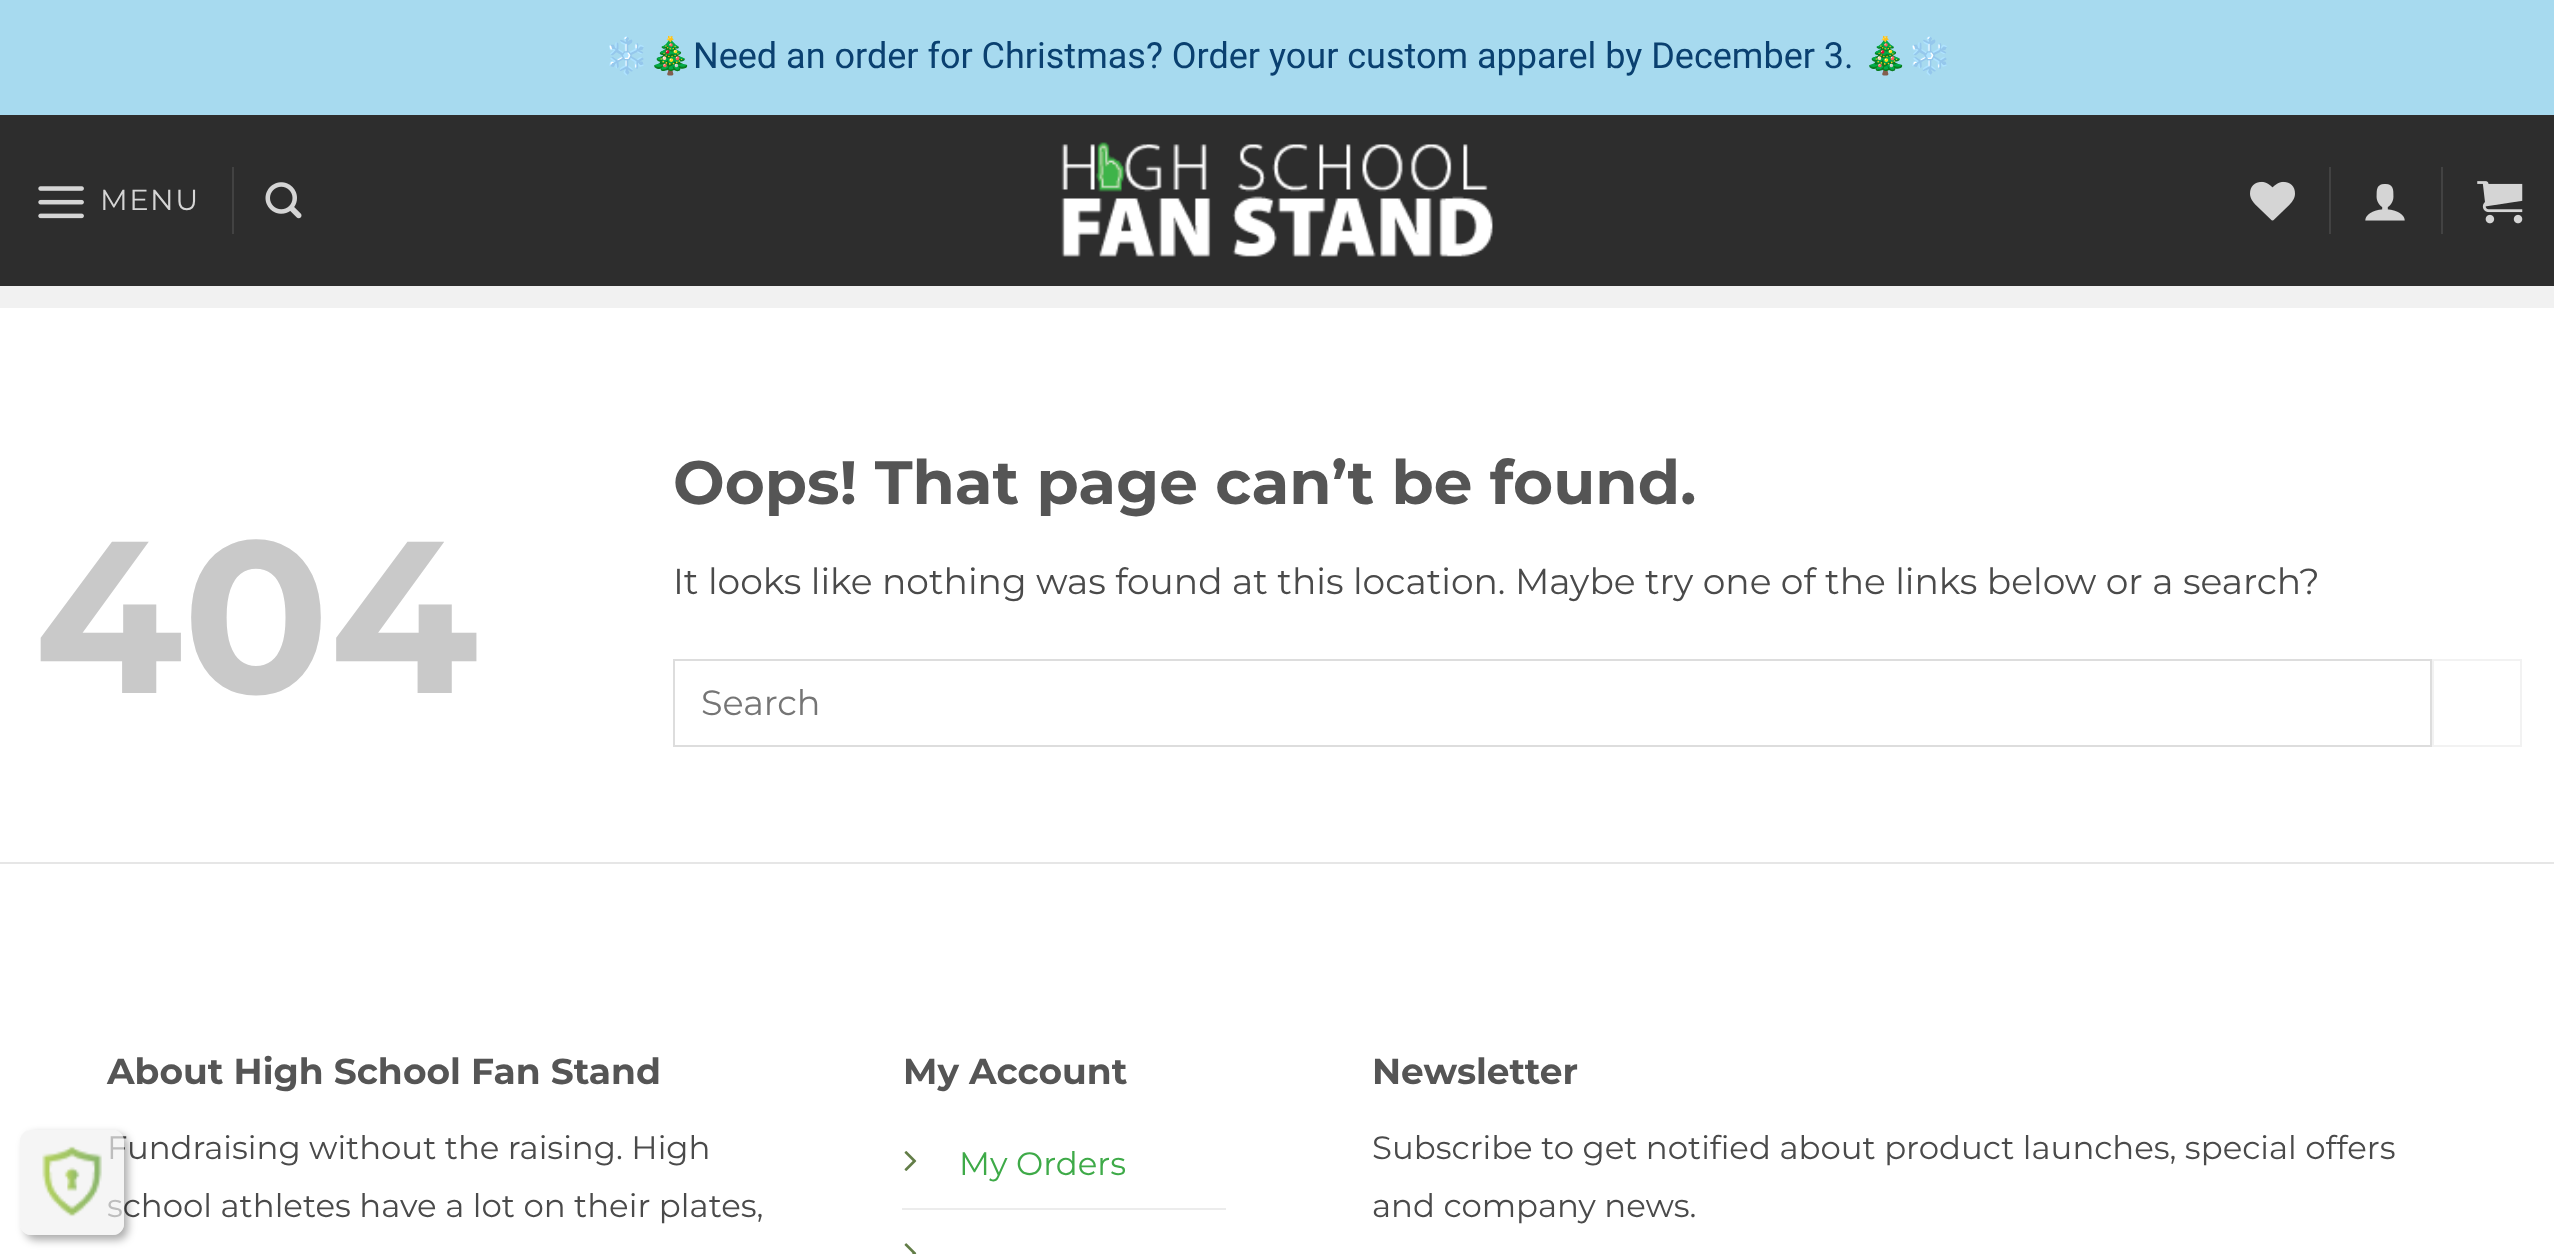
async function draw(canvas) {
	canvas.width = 2554;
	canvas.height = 1254;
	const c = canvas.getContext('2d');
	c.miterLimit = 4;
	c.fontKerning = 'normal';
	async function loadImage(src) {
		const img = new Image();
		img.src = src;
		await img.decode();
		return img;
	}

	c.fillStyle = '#fff';
	c.fillRect(0, 0, 2554, 1254);
	c.fillStyle = '#a7daef';
	c.fillRect(0, 0, 2554, 115);
	c.font = '36px Noto Color Emoji';
	c.fillStyle = '#0a4070';
	c.fillText('❄️🎄', 604, 68);
	c.font = '36px Roboto';
	c.fillText('Need an order for Christmas? Order your custom apparel by December 3.', 693, 68);
	c.font = '36px Noto Color Emoji';
	c.fillText('🎄❄️', 1863, 68);
	c.fillStyle = '#2d2d2d';
	c.fillRect(0, 115, 2554, 171);
	c.drawImage(await loadImage('img1.png'), 38, 186, 46, 33);
	c.letterSpacing = '1.5px';
	c.font = '29px Montserrat';
	c.fillStyle = '#d5d5d5';
	c.fillText('MENU', 100, 210);
	c.fillStyle = '#424242';
	c.fillRect(232, 167, 2, 67);
	c.drawImage(await loadImage('img2.png'), 265, 182, 37, 37);
	c.drawImage(await loadImage('img3.png'), 1061, 142, 432, 115);
	c.drawImage(await loadImage('img4.png'), 2250, 181, 45, 40);
	c.fillRect(2329, 167, 2, 67);
	c.drawImage(await loadImage('img5.png'), 2365, 184, 40, 37);
	c.fillRect(2441, 167, 2, 67);
	c.drawImage(await loadImage('img6.png'), 2477, 181, 46, 43);
	c.fillStyle = '#f1f1f1';
	c.fillRect(0, 286, 2554, 22);
	c.letterSpacing = '0px';
	c.font = 'bold 216px Montserrat';
	c.fillStyle = '#c9c9c9';
	c.fillText('404', 34, 693);
	c.font = 'bold 61.25px Montserrat';
	c.fillStyle = '#555';
	c.fillText('Oops! That page can’t be found.', 673, 504);
	c.font = '36px Montserrat';
	c.fillStyle = '#4a4a4a';
	c.fillText('It looks like nothing was found at this location. Maybe try one of the links below or a search?', 673, 594);
	c.strokeStyle = '#ddd';
	c.lineWidth = 2;
	c.strokeRect(674, 660, 1757, 86);
	c.font = '35px Montserrat';
	c.fillStyle = '#757575';
	c.fillText('Search', 701, 715);
	c.strokeStyle = '#f2f2f2';
	c.strokeRect(2433, 660, 88, 86);
	c.fillStyle = '#e6e6e6';
	c.fillRect(0, 862, 2554, 2);
	c.font = 'bold 36px Montserrat';
	c.fillStyle = '#555';
	c.fillText('About High School Fan Stand', 107, 1084);
	c.font = '32.4px Montserrat';
	c.fillStyle = '#4a4a4a';
	c.fillText('Fundraising without the raising. High', 107, 1159);
	c.fillText('school athletes have a lot on their plates,', 107, 1217);
	c.font = 'bold 36px Montserrat';
	c.fillStyle = '#555';
	c.fillText('My Account', 903, 1084);
	c.fillStyle = '#ececec';
	c.fillRect(902, 1208, 324, 2);
	c.drawImage(await loadImage('img7.png'), 904, 1151, 13, 20);
	c.font = '32.4px Montserrat';
	c.fillStyle = '#3eaa48';
	c.fillText('My Orders', 959, 1175);
	c.drawImage(await loadImage('img8.png'), 904, 1243, 13, 11);
	c.font = 'bold 36px Montserrat';
	c.fillStyle = '#555';
	c.fillText('Newsletter', 1372, 1084);
	c.font = '32.4px Montserrat';
	c.fillStyle = '#4a4a4a';
	c.fillText('Subscribe to get notified about product launches, special offers', 1372, 1159);
	c.fillText('and company news.', 1372, 1217);
	c.save();
	c.beginPath();
	c.moveTo(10, 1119);
	c.lineTo(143, 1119);
	c.lineTo(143, 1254);
	c.lineTo(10, 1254);
	c.closePath();
	c.moveTo(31, 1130);
	c.lineTo(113, 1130);
	c.bezierCurveTo(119, 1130, 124, 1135, 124, 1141);
	c.lineTo(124, 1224);
	c.bezierCurveTo(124, 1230, 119, 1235, 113, 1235);
	c.lineTo(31, 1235);
	c.bezierCurveTo(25, 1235, 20, 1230, 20, 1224);
	c.lineTo(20, 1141);
	c.bezierCurveTo(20, 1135, 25, 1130, 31, 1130);
	c.closePath();
	c.clip('evenodd');
	c.fillStyle = '#00000054';
	c.filter = 'blur(4.5px)';
	c.beginPath();
	c.roundRect(25, 1134, 103, 106, 11);
	c.fill();
	c.filter = 'none';
	c.restore();
	c.fillStyle = '#f1f1f1b0';
	c.beginPath();
	c.roundRect(20, 1130, 104, 105, 11);
	c.fill();
	c.drawImage(await loadImage('img9.png'), 42, 1146, 60, 71);
}

draw(document.querySelector('canvas'));
